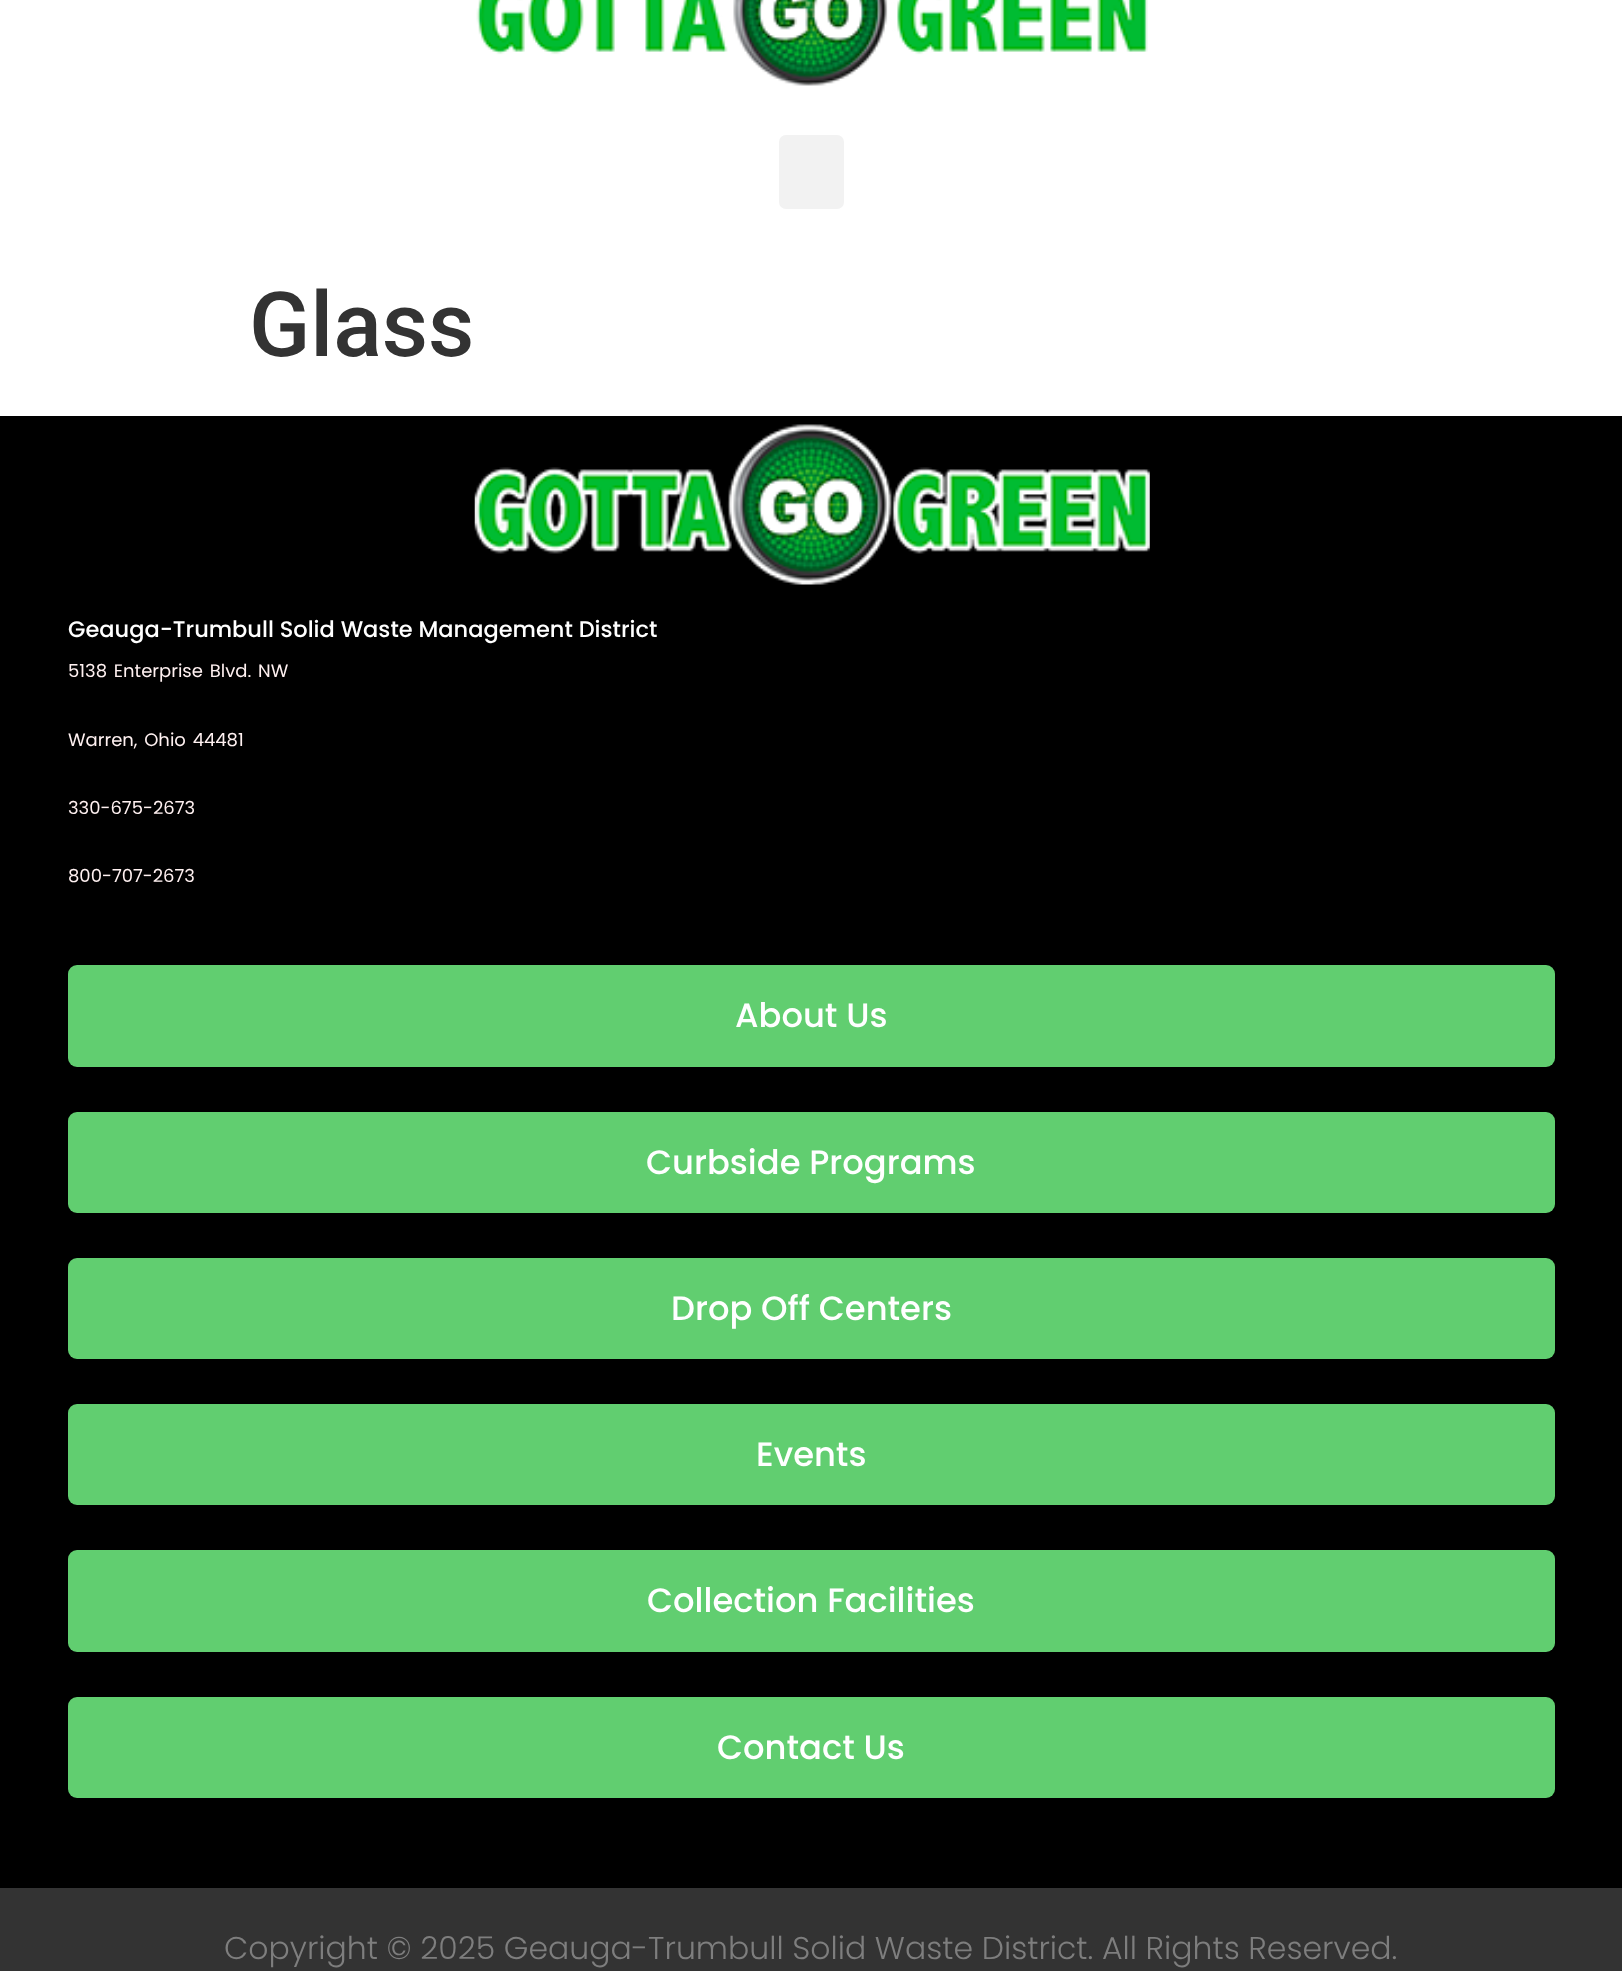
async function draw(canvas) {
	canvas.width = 1622;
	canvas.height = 1971;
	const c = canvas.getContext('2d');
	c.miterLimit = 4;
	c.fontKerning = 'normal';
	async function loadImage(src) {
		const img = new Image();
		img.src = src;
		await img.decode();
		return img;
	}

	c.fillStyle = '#fff';
	c.fillRect(0, 0, 1622, 1971);
	c.drawImage(await loadImage('img1.png'), 476, 0, 672, 86);
	c.fillStyle = '#f2f2f2';
	c.beginPath();
	c.roundRect(779, 135, 65, 74, 7);
	c.fill();
	c.font = '500 90px Roboto';
	c.fillStyle = '#333';
	c.fillText('Glass', 249, 356);
	c.fillStyle = '#000';
	c.fillRect(0, 416, 1622, 1472);
	c.drawImage(await loadImage('img2.png'), 474, 424, 676, 161);
	c.font = '500 22.5px Poppins';
	c.fillStyle = '#fff';
	c.fillText('Geauga-Trumbull Solid Waste Management District', 68, 637);
	c.wordSpacing = '2px';
	c.font = '18px Poppins';
	c.fillStyle = '#fff1f1';
	c.fillText('5138 Enterprise Blvd. NW', 68, 677);
	c.fillText('Warren, Ohio 44481', 68, 746);
	c.wordSpacing = '0px';
	c.fillText('330-675-2673', 68, 814);
	c.fillText('800-707-2673', 68, 882);
	c.fillStyle = '#61ce70';
	c.beginPath();
	c.roundRect(68, 965, 1487, 102, 9);
	c.fill();
	c.font = '500 33.75px Poppins';
	c.fillStyle = '#fff';
	c.fillText('About Us', 735, 1027);
	c.fillStyle = '#61ce70';
	c.beginPath();
	c.roundRect(68, 1112, 1487, 101, 9);
	c.fill();
	c.fillStyle = '#fff';
	c.fillText('Curbside Programs', 646, 1174);
	c.fillStyle = '#61ce70';
	c.beginPath();
	c.roundRect(68, 1258, 1487, 101, 9);
	c.fill();
	c.fillStyle = '#fff';
	c.fillText('Drop Off Centers', 671, 1320);
	c.fillStyle = '#61ce70';
	c.beginPath();
	c.roundRect(68, 1404, 1487, 101, 9);
	c.fill();
	c.fillStyle = '#fff';
	c.fillText('Events', 756, 1466);
	c.fillStyle = '#61ce70';
	c.beginPath();
	c.roundRect(68, 1550, 1487, 102, 9);
	c.fill();
	c.fillStyle = '#fff';
	c.fillText('Collection Facilities', 647, 1612);
	c.fillStyle = '#61ce70';
	c.beginPath();
	c.roundRect(68, 1697, 1487, 101, 9);
	c.fill();
	c.fillStyle = '#fff';
	c.fillText('Contact Us', 717, 1759);
	c.fillStyle = '#333';
	c.fillRect(0, 1888, 1622, 83);
	c.font = '300 31.5px Poppins';
	c.fillStyle = '#7e7e7e';
	c.fillText('Copyright © 2025 Geauga-Trumbull Solid Waste District. All Rights Reserved.', 224, 1959);
}

draw(document.querySelector('canvas'));
